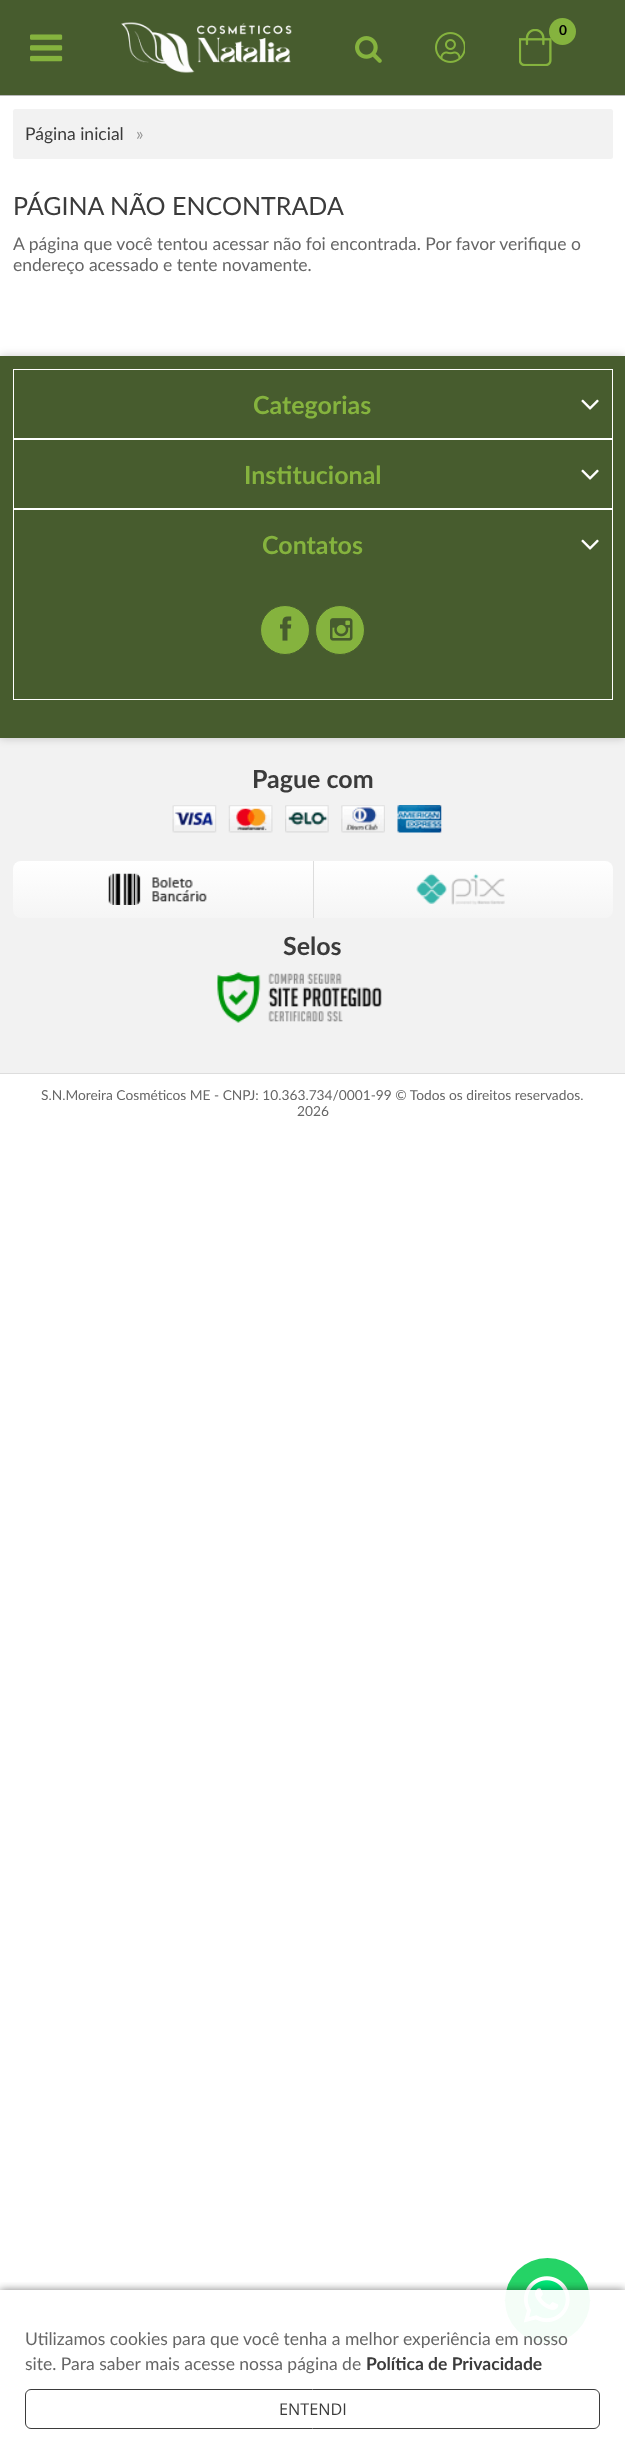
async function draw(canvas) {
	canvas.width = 625;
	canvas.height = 2464;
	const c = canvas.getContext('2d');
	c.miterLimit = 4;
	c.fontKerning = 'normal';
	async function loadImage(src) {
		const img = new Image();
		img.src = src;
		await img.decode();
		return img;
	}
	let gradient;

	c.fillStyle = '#fff';
	c.fillRect(0, 0, 625, 2464);
	c.fillStyle = '#475c2e';
	c.fillRect(0, 0, 625, 95);
	c.fillStyle = '#b8b8b8';
	c.fillRect(0, 95, 625, 1);
	c.drawImage(await loadImage('img1.png'), 121, 22, 171, 51);
	c.drawImage(await loadImage('img2.png'), 519, 29, 33, 37);
	c.fillStyle = '#85b33e';
	c.beginPath();
	c.arc(562.5, 31.5, 13.5, 0, 2 * Math.PI);
	c.fill();
	c.font = 'bold 13.75px Lato';
	c.fillStyle = '#000';
	c.fillText('0', 559, 35);
	c.drawImage(await loadImage('img3.png'), 30, 34, 33, 28);
	c.drawImage(await loadImage('img4.png'), 355, 36, 27, 27);
	c.drawImage(await loadImage('img5.png'), 435, 32, 30, 31);
	c.fillStyle = '#f2f2f2';
	c.beginPath();
	c.roundRect(13, 109, 600, 50, 2.5);
	c.fill();
	c.font = '17.5px Lato';
	c.fillStyle = '#3b3b3b';
	c.fillText('Página inicial', 25, 140);
	c.fillStyle = '#999';
	c.fillText('»', 136, 140);
	c.font = '25px Lato';
	c.fillStyle = '#3b3b3b';
	c.fillText('PÁGINA NÃO ENCONTRADA', 13, 215);
	c.font = '17.5px Lato';
	c.fillStyle = '#666';
	c.fillText('A página que você tentou acessar não foi encontrada. Por favor verifique o', 13, 250);
	c.fillText('endereço acessado e tente novamente.', 13, 271);
	c.fillStyle = '#f2f2f2';
	c.fillRect(0, 738, 625, 335);
	c.fillStyle = '#00000033';
	c.filter = 'blur(5px)';
	c.beginPath();
	c.rect(0, 356, 625, 382);
	c.fill();
	c.filter = 'none';
	c.fillStyle = '#475c2e';
	c.fillRect(0, 356, 625, 382);
	c.strokeStyle = '#fff';
	c.strokeRect(13.5, 369.5, 599, 69);
	c.font = 'bold 25px Lato';
	c.fillStyle = '#85b33e';
	c.fillText('Categorias', 253, 414);
	c.drawImage(await loadImage('img6.png'), 581, 399, 18, 11);
	c.strokeRect(13.5, 439.5, 599, 69);
	c.fillText('Institucional', 244, 484);
	c.drawImage(await loadImage('img6.png'), 581, 469, 18, 11);
	c.strokeRect(13.5, 509.5, 599, 190);
	c.fillText('Contatos', 262, 554);
	c.drawImage(await loadImage('img6.png'), 581, 539, 18, 11);
	c.beginPath();
	c.arc(285, 630, 24.5, 0, 2 * Math.PI);
	c.fill();
	c.strokeStyle = '#475c2e';
	c.stroke();
	c.drawImage(await loadImage('img7.png'), 280, 616, 12, 25);
	c.beginPath();
	c.arc(340, 630, 24.5, 0, 2 * Math.PI);
	c.fill();
	c.stroke();
	c.drawImage(await loadImage('img8.png'), 330, 618, 23, 23);
	c.fillStyle = '#3b3b3b';
	c.fillText('Pague com', 252, 788);
	c.drawImage(await loadImage('img9.png'), 172, 805, 45, 28);
	c.drawImage(await loadImage('img10.png'), 228, 805, 45, 28);
	c.drawImage(await loadImage('img11.png'), 285, 805, 44, 28);
	c.drawImage(await loadImage('img12.png'), 341, 805, 44, 28);
	c.drawImage(await loadImage('img13.png'), 397, 805, 45, 28);
	gradient = c.createLinearGradient(313, 861, 313, 918);
	gradient.addColorStop(0, '#fff');
	gradient.addColorStop(1, '#f5f5f5');
	c.fillStyle = gradient;
	c.beginPath();
	c.roundRect(13, 861, 600, 57, 8);
	c.fill();
	c.drawImage(await loadImage('img14.png'), 108, 873, 99, 32);
	c.fillStyle = '#ddd';
	c.fillRect(313, 861, 1, 57);
	c.drawImage(await loadImage('img15.png'), 416, 873, 89, 32);
	c.fillStyle = '#3b3b3b';
	c.fillText('Selos', 283, 955);
	c.drawImage(await loadImage('img16.png'), 217, 972, 165, 51);
	c.fillStyle = '#ddd';
	c.fillRect(0, 1073, 625, 1);
	c.font = '13.75px Lato';
	c.fillStyle = '#666';
	c.fillText('S.N.Moreira Cosméticos ME - CNPJ: 10.363.734/0001-99 © Todos os direitos reservados.', 41, 1100);
	c.fillText('2026', 297, 1116);
	c.fillStyle = '#25d366';
	c.beginPath();
	c.arc(547.5, 2300.5, 42.5, 0, 2 * Math.PI);
	c.fill();
	c.drawImage(await loadImage('img17.png'), 523, 2276, 47, 47);
	c.save();
	c.beginPath();
	c.rect(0, 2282, 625, 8);
	c.clip();
	c.fillStyle = '#00000080';
	c.filter = 'blur(4.5px)';
	c.beginPath();
	c.rect(0, 2290, 625, 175);
	c.fill();
	c.filter = 'none';
	c.restore();
	c.fillStyle = '#fffffff2';
	c.fillRect(505, 2290, 85, 53);
	c.font = '17.5px Lato';
	c.fillStyle = '#666';
	c.fillText('Utilizamos cookies para que você tenha a melhor experiência em nosso', 25, 2345);
	c.fillText('site. Para saber mais acesse nossa página de', 25, 2370);
	c.font = 'bold 17.5px Lato';
	c.fillStyle = '#3b3b3b';
	c.fillText('Política de Privacidade', 366, 2370);
	c.beginPath();
	c.roundRect(25.5, 2389.5, 574, 39, 5.5);
	c.strokeStyle = '#3b3b3b';
	c.stroke();
	c.font = '16.25px Open Sans';
	c.fillText('ENTENDI', 279, 2415);
}

draw(document.querySelector('canvas'));
